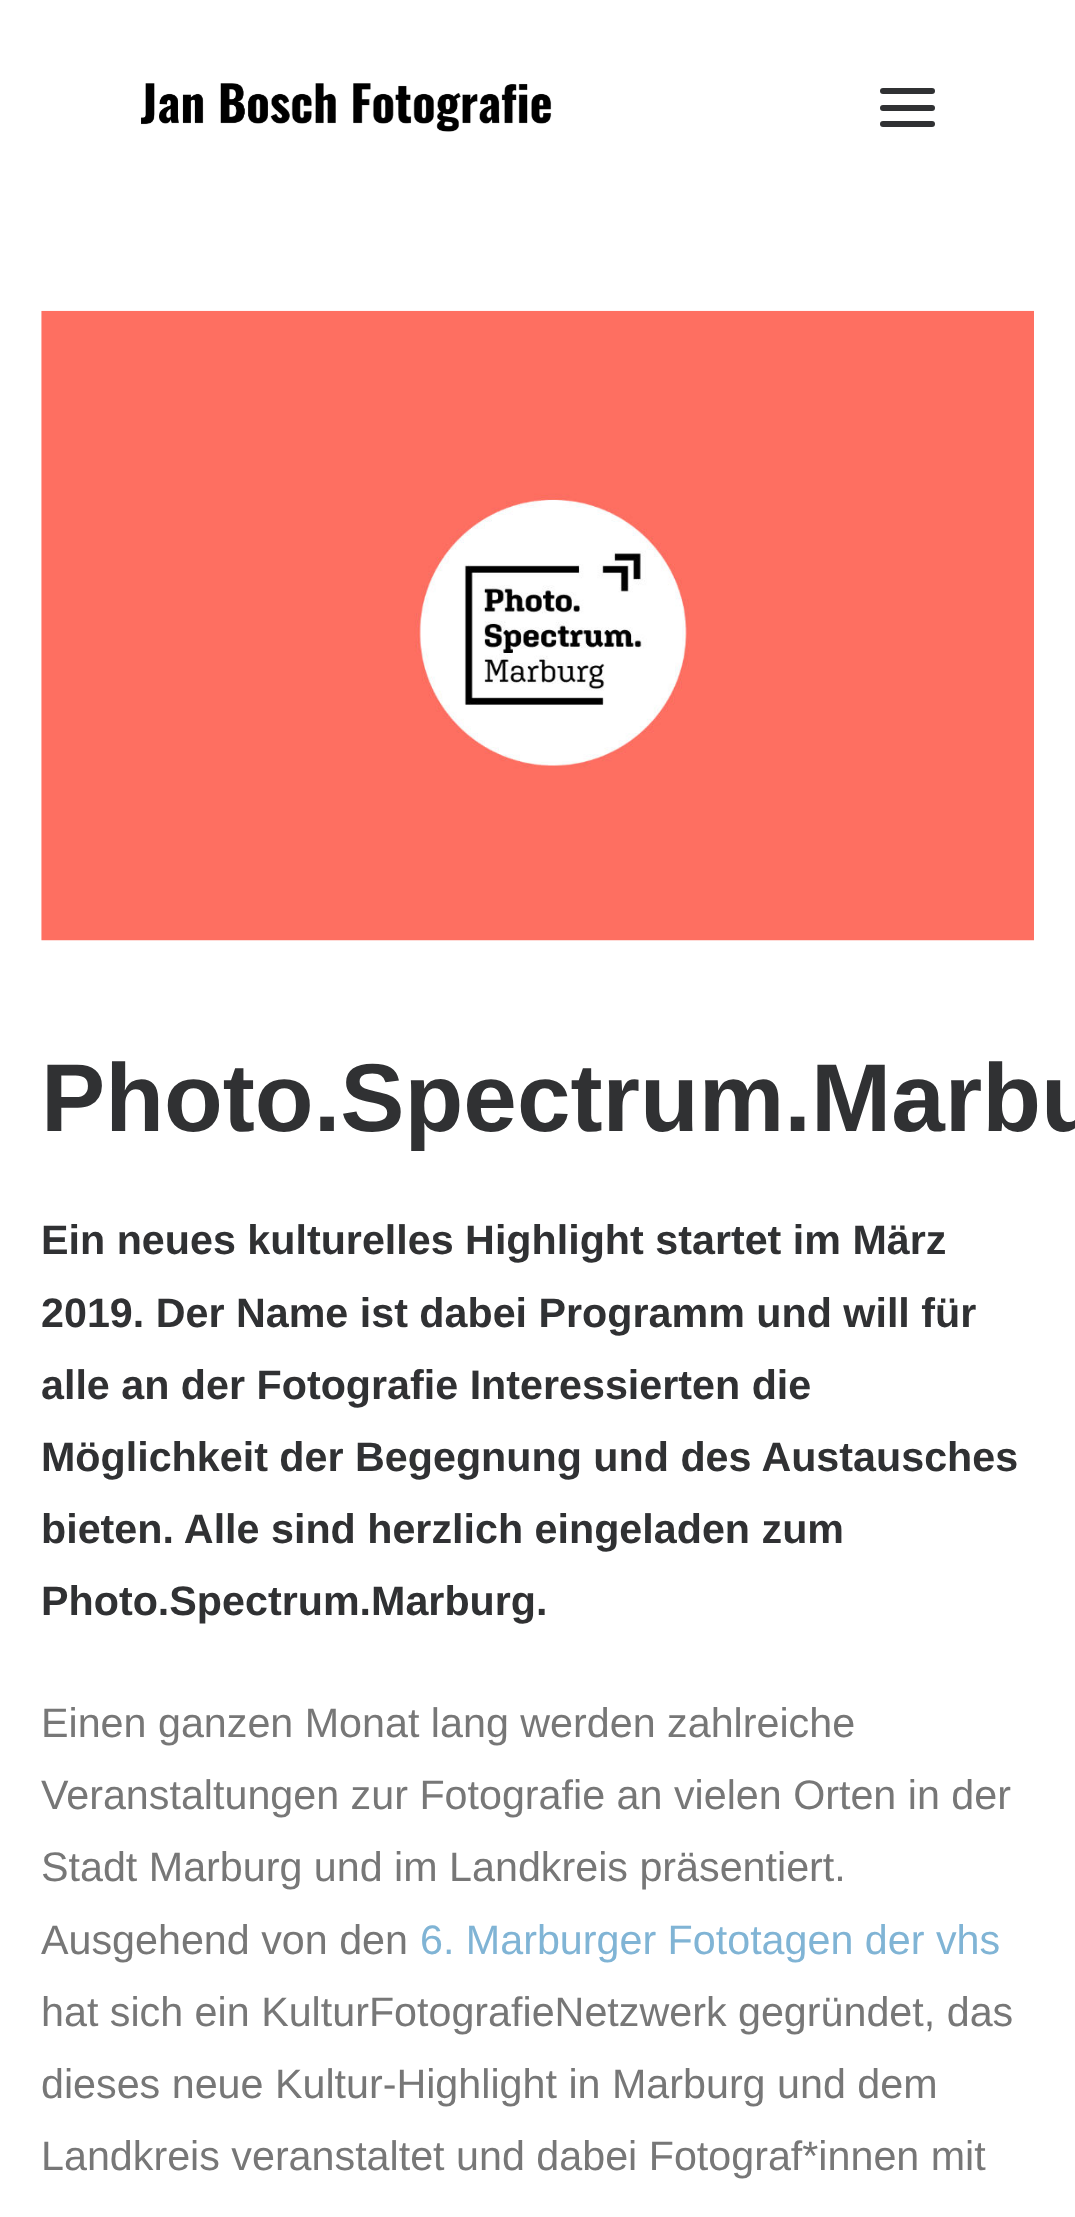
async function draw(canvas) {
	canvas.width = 1075;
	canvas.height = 2217;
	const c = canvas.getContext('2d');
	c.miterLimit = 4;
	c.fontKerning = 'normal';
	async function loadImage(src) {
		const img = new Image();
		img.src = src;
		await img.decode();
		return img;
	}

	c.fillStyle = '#fff';
	c.fillRect(0, 0, 1075, 2217);
	c.drawImage(await loadImage('img1.png'), 141, 83, 411, 49);
	c.fillStyle = '#303133';
	c.beginPath();
	c.roundRect(880, 105, 55, 6, 3);
	c.fill();
	c.beginPath();
	c.roundRect(880, 88, 55, 6, 3);
	c.fill();
	c.beginPath();
	c.roundRect(880, 121, 55, 6, 3);
	c.fill();
	c.drawImage(await loadImage('img2.png'), 41, 310, 993, 631);
	c.font = 'bold 96.25px Liberation Sans';
	c.fillText('Photo.Spectrum.Marbu', 41, 1131);
	c.font = 'bold 41.25px Liberation Sans';
	for (const [text, x, y] of [
		['Ein neues kulturelles Highlight startet im März', 41, 1254],
		['2019. Der Name ist dabei Programm und will für', 41, 1327],
		['alle an der Fotografie Interessierten die', 41, 1399],
		['Möglichkeit der Begegnung und des Austausches', 41, 1471],
		['bieten. Alle sind herzlich eingeladen zum', 41, 1543],
		['Photo.Spectrum.Marburg.', 41, 1615],
	]) {
		c.fillText(text, x, y);
	}
	c.font = '41.25px Liberation Sans';
	c.fillStyle = '#777';
	for (const [text, x, y] of [
		['Einen ganzen Monat lang werden zahlreiche', 41, 1737],
		['Veranstaltungen zur Fotografie an vielen Orten in der', 41, 1809],
		['Stadt Marburg und im Landkreis präsentiert.', 41, 1881],
		['Ausgehend von den', 41, 1954],
	]) {
		c.fillText(text, x, y);
	}
	c.fillStyle = '#80b4d5';
	c.fillText('6. Marburger Fototagen der vhs', 420, 1954);
	c.fillStyle = '#777';
	for (const [text, x, y] of [
		['hat sich ein KulturFotografieNetzwerk gegründet, das', 41, 2026],
		['dieses neue Kultur-Highlight in Marburg und dem', 41, 2098],
		['Landkreis veranstaltet und dabei Fotograf*innen mit', 41, 2170],
	]) {
		c.fillText(text, x, y);
	}
}

draw(document.querySelector('canvas'));
